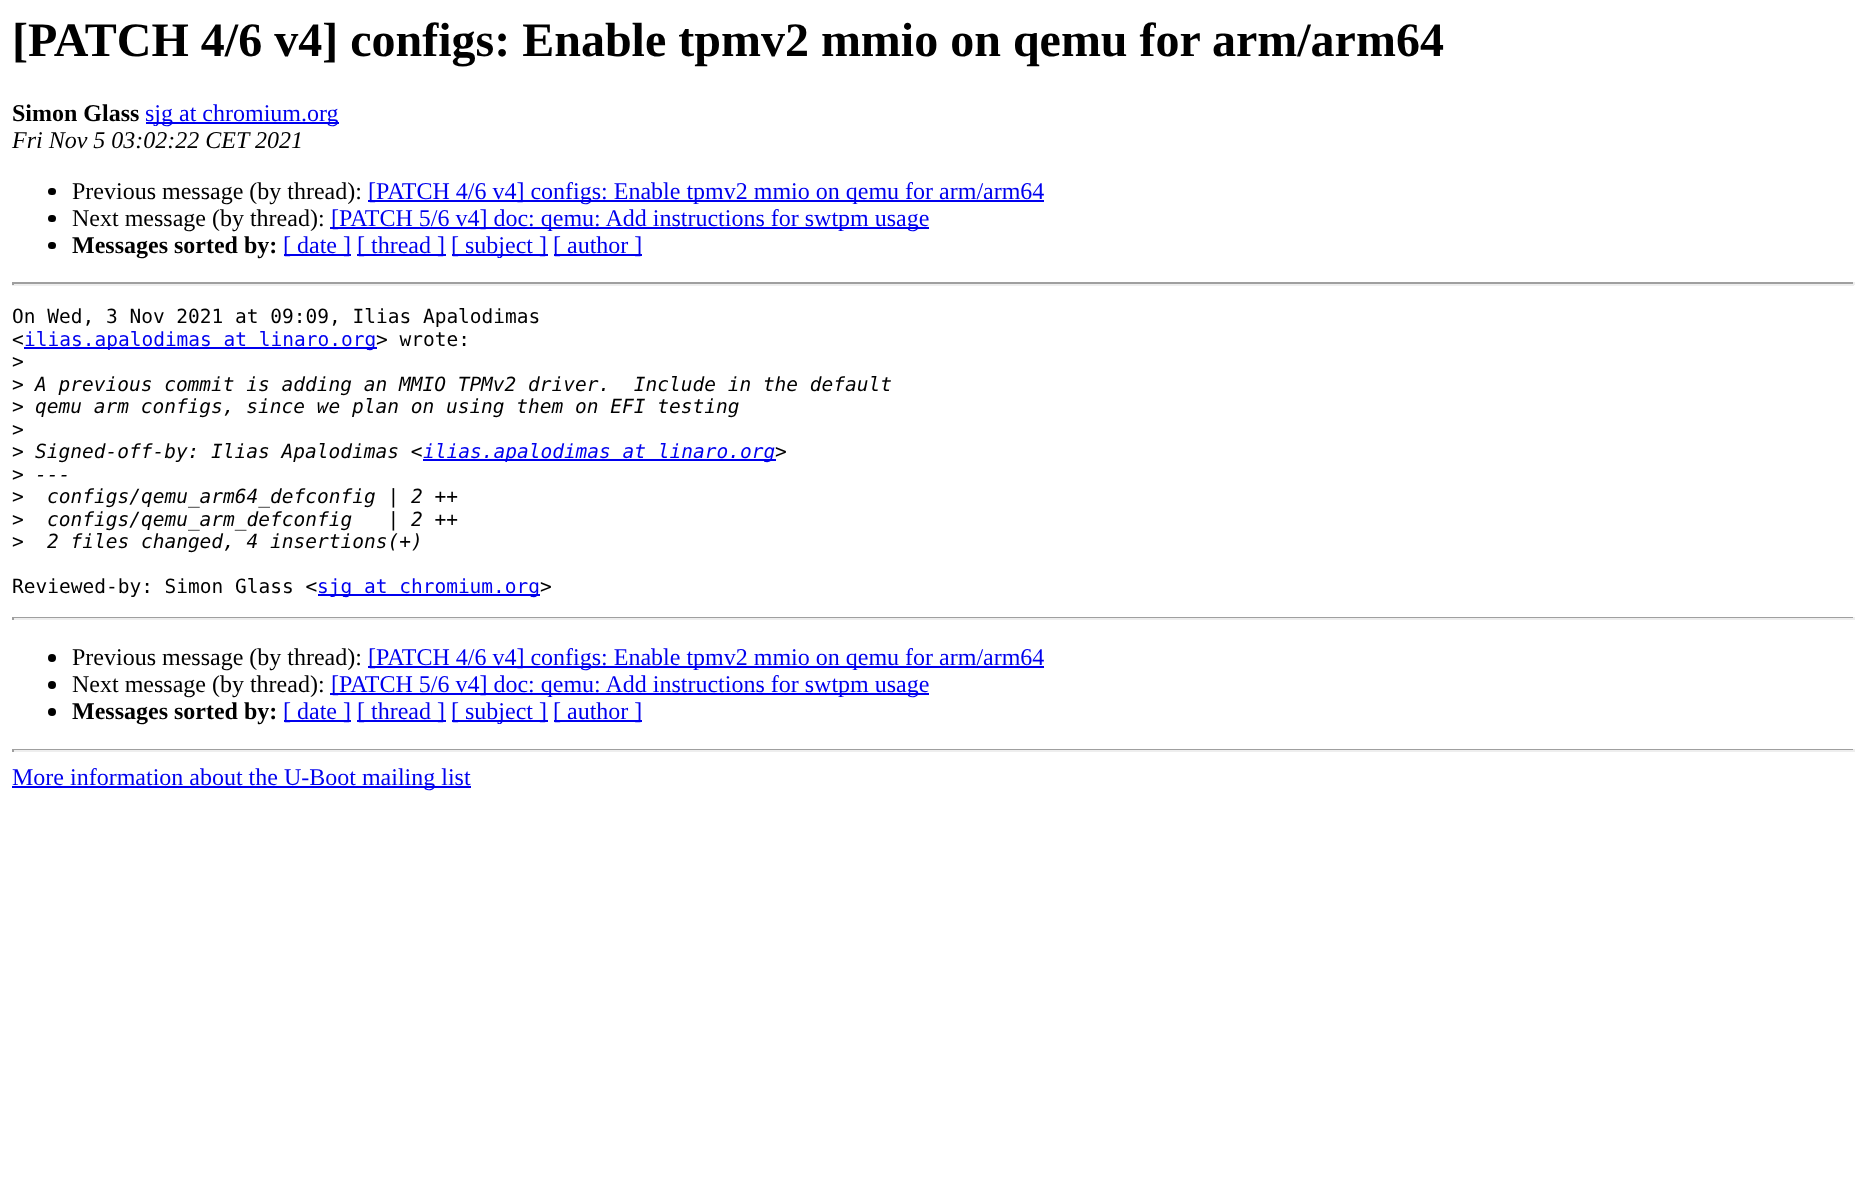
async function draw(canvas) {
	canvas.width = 1866;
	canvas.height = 1190;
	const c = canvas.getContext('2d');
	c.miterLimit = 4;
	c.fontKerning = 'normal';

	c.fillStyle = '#fff';
	c.fillRect(0, 0, 1866, 1190);
	c.font = 'bold 48px Liberation Serif';
	c.fillStyle = '#000';
	c.fillText('[PATCH 4/6 v4] configs: Enable tpmv2 mmio on qemu for arm/arm64', 12, 56);
	c.font = 'bold 24px Liberation Serif';
	c.fillText('Simon Glass', 12, 121);
	c.fillStyle = '#00e';
	c.fillRect(146, 122, 193, 2);
	c.font = '24px Liberation Serif';
	c.fillText('sjg at chromium.org', 145, 121);
	c.font = 'italic 24px Liberation Serif';
	c.fillStyle = '#000';
	c.fillText('Fri Nov 5 03:02:22 CET 2021', 12, 148);
	c.beginPath();
	c.roundRect(48, 188, 8, 7, 3.5);
	c.fill();
	c.font = '24px Liberation Serif';
	c.fillText('Previous message (by thread):', 72, 199);
	c.fillStyle = '#00e';
	c.fillRect(368, 200, 676, 2);
	c.fillText('[PATCH 4/6 v4] configs: Enable tpmv2 mmio on qemu for arm/arm64', 368, 199);
	c.fillStyle = '#000';
	c.beginPath();
	c.roundRect(48, 215, 8, 7, 3.5);
	c.fill();
	c.fillText('Next message (by thread):', 72, 226);
	c.fillStyle = '#00e';
	c.fillRect(330, 227, 599, 2);
	c.fillText('[PATCH 5/6 v4] doc: qemu: Add instructions for swtpm usage', 331, 226);
	c.fillStyle = '#000';
	c.beginPath();
	c.roundRect(48, 242, 8, 7, 3.5);
	c.fill();
	c.font = 'bold 24px Liberation Serif';
	c.fillText('Messages sorted by:', 72, 253);
	c.fillStyle = '#00e';
	c.fillRect(284, 254, 67, 2);
	c.font = '24px Liberation Serif';
	c.fillText('[ date ]', 283, 253);
	c.fillRect(357, 254, 89, 2);
	c.fillText('[ thread ]', 357, 253);
	c.fillRect(452, 254, 96, 2);
	c.fillText('[ subject ]', 451, 253);
	c.fillRect(554, 254, 88, 2);
	c.fillText('[ author ]', 553, 253);
	for (const [x, y, w, h, color] of [
		[12, 282, 1842, 2, '#9f9f9f'],
		[1853, 282, 2, 3, '#eee'],
		[12, 284, 1842, 2, '#eee'],
		[12, 282, 2, 3, '#9f9f9f'],
	]) {
		c.fillStyle = color;
		c.fillRect(x, y, w, h);
	}
	c.font = '19.5px DejaVu Sans Mono';
	c.fillStyle = '#000';
	c.fillText('On Wed, 3 Nov 2021 at 09:09, Ilias Apalodimas', 12, 323);
	c.fillText('<', 12, 346);
	c.fillStyle = '#00e';
	c.fillRect(24, 347, 353, 2);
	c.fillText('ilias.apalodimas at linaro.org', 24, 346);
	c.fillStyle = '#000';
	for (const [text, x, y] of [
		['> wrote:', 376, 346],
		['>', 12, 368],
		['>', 12, 391],
	]) {
		c.fillText(text, x, y);
	}
	c.font = 'italic 19.5px DejaVu Sans Mono';
	c.fillText('A previous commit is adding an MMIO TPMv2 driver.  Include in the default', 35, 391);
	c.font = '19.5px DejaVu Sans Mono';
	c.fillText('>', 12, 413);
	c.font = 'italic 19.5px DejaVu Sans Mono';
	c.fillText('qemu arm configs, since we plan on using them on EFI testing', 35, 413);
	c.font = '19.5px DejaVu Sans Mono';
	c.fillText('>', 12, 436);
	c.fillText('>', 12, 458);
	c.font = 'italic 19.5px DejaVu Sans Mono';
	c.fillText('Signed-off-by: Ilias Apalodimas <', 35, 458);
	c.fillStyle = '#00e';
	c.fillRect(423, 459, 353, 2);
	c.fillText('ilias.apalodimas at linaro.org', 423, 458);
	c.fillStyle = '#000';
	c.fillText('>', 775, 458);
	c.font = '19.5px DejaVu Sans Mono';
	c.fillText('>', 12, 481);
	c.font = 'italic 19.5px DejaVu Sans Mono';
	c.fillText('---', 35, 481);
	c.font = '19.5px DejaVu Sans Mono';
	c.fillText('>', 12, 503);
	c.font = 'italic 19.5px DejaVu Sans Mono';
	c.fillText('configs/qemu_arm64_defconfig | 2 ++', 47, 503);
	c.font = '19.5px DejaVu Sans Mono';
	c.fillText('>', 12, 526);
	c.font = 'italic 19.5px DejaVu Sans Mono';
	c.fillText('configs/qemu_arm_defconfig   | 2 ++', 47, 526);
	c.font = '19.5px DejaVu Sans Mono';
	c.fillText('>', 12, 548);
	c.font = 'italic 19.5px DejaVu Sans Mono';
	c.fillText('2 files changed, 4 insertions(+)', 47, 548);
	c.font = '19.5px DejaVu Sans Mono';
	c.fillText('Reviewed-by: Simon Glass <', 12, 593);
	c.fillStyle = '#00e';
	c.fillRect(318, 594, 222, 2);
	c.fillText('sjg at chromium.org', 317, 593);
	c.fillStyle = '#000';
	c.fillText('>', 540, 593);
	for (const [x, y, w, h, color] of [
		[12, 617, 1842, 1, '#9f9f9f'],
		[1853, 617, 2, 3, '#eee'],
		[12, 618, 1842, 2, '#eee'],
		[12, 617, 2, 3, '#9f9f9f'],
	]) {
		c.fillStyle = color;
		c.fillRect(x, y, w, h);
	}
	c.fillStyle = '#000';
	c.beginPath();
	c.arc(52, 658, 4, 0, 2 * Math.PI);
	c.fill();
	c.font = '24px Liberation Serif';
	c.fillText('Previous message (by thread):', 72, 665);
	c.fillStyle = '#00e';
	c.fillRect(368, 666, 676, 2);
	c.fillText('[PATCH 4/6 v4] configs: Enable tpmv2 mmio on qemu for arm/arm64', 368, 665);
	c.fillStyle = '#000';
	c.beginPath();
	c.arc(52, 685, 4, 0, 2 * Math.PI);
	c.fill();
	c.fillText('Next message (by thread):', 72, 692);
	c.fillStyle = '#00e';
	c.fillRect(330, 693, 599, 2);
	c.fillText('[PATCH 5/6 v4] doc: qemu: Add instructions for swtpm usage', 331, 692);
	c.fillStyle = '#000';
	c.beginPath();
	c.arc(52, 712, 4, 0, 2 * Math.PI);
	c.fill();
	c.font = 'bold 24px Liberation Serif';
	c.fillText('Messages sorted by:', 72, 719);
	c.fillStyle = '#00e';
	c.fillRect(284, 720, 67, 2);
	c.font = '24px Liberation Serif';
	c.fillText('[ date ]', 283, 719);
	c.fillRect(357, 720, 89, 2);
	c.fillText('[ thread ]', 357, 719);
	c.fillRect(452, 720, 96, 2);
	c.fillText('[ subject ]', 451, 719);
	c.fillRect(554, 720, 88, 2);
	c.fillText('[ author ]', 553, 719);
	for (const [x, y, w, h, color] of [
		[12, 749, 1842, 1, '#9f9f9f'],
		[1853, 749, 2, 3, '#eee'],
		[12, 750, 1842, 2, '#eee'],
		[12, 749, 2, 3, '#9f9f9f'],
		[12, 786, 459, 2, '#00e'],
	]) {
		c.fillStyle = color;
		c.fillRect(x, y, w, h);
	}
	c.fillText('More information about the U-Boot mailing list', 12, 785);
}

draw(document.querySelector('canvas'));
